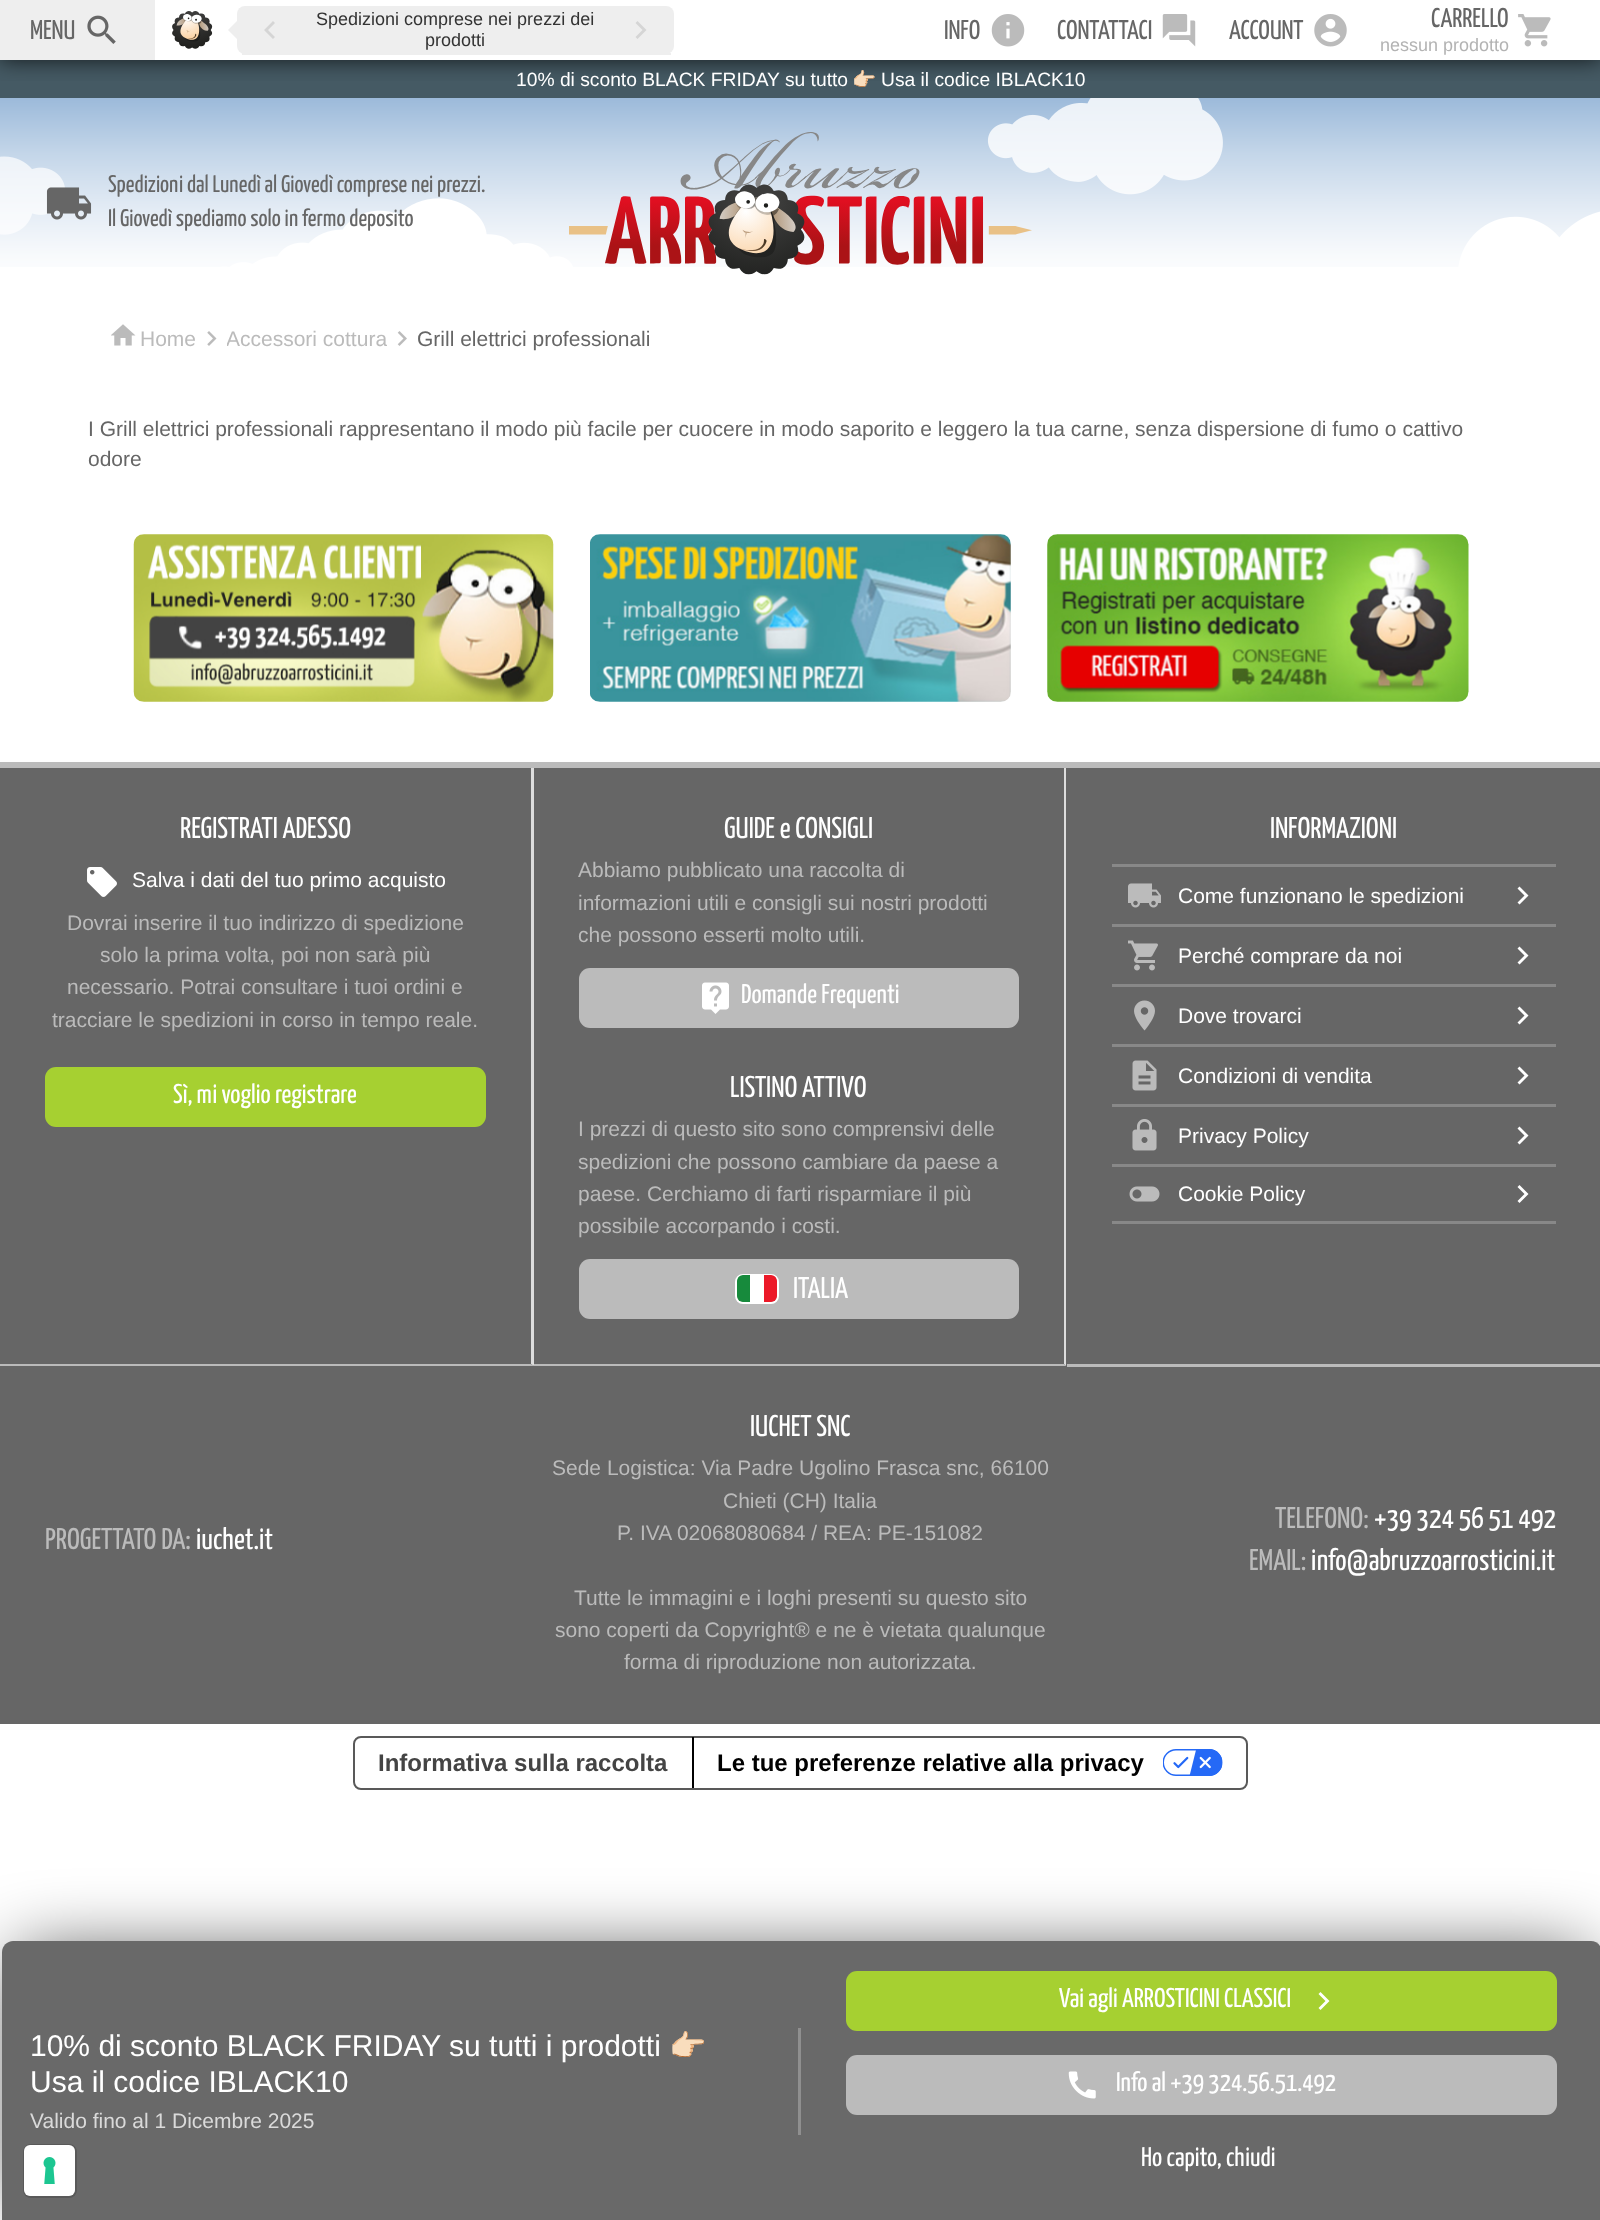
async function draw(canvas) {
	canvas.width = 1600;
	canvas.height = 2220;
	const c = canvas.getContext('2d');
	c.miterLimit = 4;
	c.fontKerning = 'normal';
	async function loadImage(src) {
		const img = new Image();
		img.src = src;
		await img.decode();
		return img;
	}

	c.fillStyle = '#fff';
	c.fillRect(0, 0, 1600, 2220);
	c.fillStyle = '#455a64';
	c.fillRect(0, 60, 1600, 38);
	c.save();
	c.beginPath();
	c.rect(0, 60, 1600, 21);
	c.clip();
	c.fillStyle = '#000000bf';
	c.filter = 'blur(11px)';
	c.beginPath();
	c.rect(0, 0, 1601, 60);
	c.fill();
	c.filter = 'none';
	c.restore();
	c.fillStyle = '#eee';
	c.fillRect(0, 0, 155, 60);
	c.font = '27px Yanone Kaffeesatz';
	c.fillStyle = '#666';
	c.fillText('MENU', 30, 39);
	c.drawImage(await loadImage('img1.png'), 87, 15, 29, 29);
	c.drawImage(await loadImage('img2.png'), 172, 11, 41, 38);
	c.fillStyle = '#eee';
	c.beginPath();
	c.roundRect(237, 6, 437, 48, 8);
	c.fill();
	c.fillRect(242, 53, 429, 2);
	c.beginPath();
	c.moveTo(237, 21);
	c.lineTo(237, 39);
	c.lineTo(228, 30);
	c.closePath();
	c.fill();
	c.fillStyle = '#d5d5d5';
	c.beginPath();
	c.moveTo(275, 37);
	c.lineTo(273, 39);
	c.lineTo(264, 30);
	c.lineTo(273, 21);
	c.lineTo(275, 23);
	c.lineTo(268, 30);
	c.closePath();
	c.fill();
	c.font = '18px Liberation Sans';
	c.fillStyle = '#333';
	c.fillText('Spedizioni comprese nei prezzi dei', 316, 25);
	c.fillText('prodotti', 425, 46);
	c.fillStyle = '#d5d5d5';
	c.beginPath();
	c.moveTo(635.5, 37);
	c.lineTo(642.5, 30);
	c.lineTo(635.5, 23);
	c.lineTo(637.5, 21);
	c.lineTo(646.5, 30);
	c.lineTo(637.5, 39);
	c.closePath();
	c.fill();
	c.font = '27px Yanone Kaffeesatz';
	c.fillStyle = '#666';
	c.fillText('INFO', 944, 39);
	c.drawImage(await loadImage('img3.png'), 991, 14, 34, 33);
	c.fillText('CONTATTACI', 1057, 39);
	c.drawImage(await loadImage('img4.png'), 1162, 14, 34, 33);
	c.fillText('ACCOUNT', 1229, 39);
	c.drawImage(await loadImage('img5.png'), 1314, 14, 33, 33);
	c.fillText('CARRELLO', 1431, 27);
	c.font = '18px Liberation Sans';
	c.fillStyle = '#b3b3b3';
	c.fillText('nessun prodotto', 1380, 51);
	c.drawImage(await loadImage('img6.png'), 1518, 14, 33, 33);
	c.font = '19.25px Liberation Sans';
	c.fillStyle = '#fff';
	c.fillText('10% di sconto BLACK FRIDAY su tutto', 516, 86);
	c.font = '19.25px Noto Color Emoji';
	c.fillText('👉🏻', 852, 86);
	c.font = '19.25px Liberation Sans';
	c.fillText('Usa il codice IBLACK10', 881, 86);
	c.drawImage(await loadImage('img7.png'), 0, 98, 1600, 169);
	c.drawImage(await loadImage('img8.png'), 46, 187, 46, 33);
	c.font = '24px Yanone Kaffeesatz';
	c.fillStyle = '#666';
	c.fillText('Spedizioni dal Lunedì al Giovedì comprese nei prezzi.', 108, 192);
	c.fillText('Il Giovedì spediamo solo in fermo deposito', 108, 226);
	c.drawImage(await loadImage('img9.png'), 569, 132, 463, 143);
	c.drawImage(await loadImage('img10.png'), 111, 324, 25, 22);
	c.font = '21px Liberation Sans';
	c.fillStyle = '#bbb';
	c.fillText('Home', 140, 346);
	c.drawImage(await loadImage('img11.png'), 207, 331, 10, 15);
	c.save();
	c.beginPath();
	c.rect(227, 323, 160, 33);
	c.clip();
	c.fillText('Accessori cottura', 226, 346);
	c.restore();
	c.drawImage(await loadImage('img12.png'), 397, 331, 10, 15);
	c.fillStyle = '#666';
	for (const [text, x, y] of [
		['Grill elettrici professionali', 417, 346],
		['I Grill elettrici professionali rappresentano il modo più facile per cuocere in modo saporito e leggero la tua carne, senza dispersione di fumo o cattivo', 88, 436],
		['odore', 88, 466],
	]) {
		c.fillText(text, x, y);
	}
	c.drawImage(await loadImage('img13.png'), 133, 534, 421, 168);
	c.drawImage(await loadImage('img14.png'), 590, 534, 421, 168);
	c.drawImage(await loadImage('img15.png'), 1047, 534, 422, 168);
	c.fillRect(0, 768, 1600, 956);
	c.fillStyle = '#bbb';
	c.fillRect(0, 762, 1600, 6);
	c.fillStyle = '#ddd';
	c.beginPath();
	c.moveTo(534, 768);
	c.lineTo(534, 1366);
	c.lineTo(531, 1364);
	c.lineTo(531, 768);
	c.closePath();
	c.fill();
	c.fillStyle = '#bbb';
	c.beginPath();
	c.moveTo(534, 1366);
	c.lineTo(0, 1366);
	c.lineTo(0, 1364);
	c.lineTo(531, 1364);
	c.closePath();
	c.fill();
	c.font = '30px Yanone Kaffeesatz';
	c.fillStyle = '#fff';
	c.fillText('REGISTRATI ADESSO', 180, 838);
	c.drawImage(await loadImage('img16.png'), 87, 867, 30, 30);
	c.font = '21px Liberation Sans';
	c.fillText('Salva i dati del tuo primo acquisto', 132, 887);
	c.fillStyle = '#bbb';
	for (const [text, x, y] of [
		['Dovrai inserire il tuo indirizzo di spedizione', 67, 930],
		['solo la prima volta, poi non sarà più', 100, 962],
		['necessario. Potrai consultare i tuoi ordini e', 67, 994],
		['tracciare le spedizioni in corso in tempo reale.', 52, 1027],
	]) {
		c.fillText(text, x, y);
	}
	c.fillStyle = '#a6d031';
	c.beginPath();
	c.roundRect(45, 1067, 441, 60, 11);
	c.fill();
	c.font = '27px Yanone Kaffeesatz';
	c.fillStyle = '#fff';
	c.fillText('Sì, mi voglio registrare', 173, 1103);
	c.fillStyle = '#ddd';
	c.beginPath();
	c.moveTo(1066, 768);
	c.lineTo(1066, 1366);
	c.lineTo(1064, 1364);
	c.lineTo(1064, 768);
	c.closePath();
	c.fill();
	c.fillStyle = '#bbb';
	c.beginPath();
	c.moveTo(1066, 1366);
	c.lineTo(534, 1366);
	c.lineTo(534, 1364);
	c.lineTo(1064, 1364);
	c.closePath();
	c.fill();
	c.font = '30px Yanone Kaffeesatz';
	c.fillStyle = '#fff';
	c.fillText('GUIDE e CONSIGLI', 724, 838);
	c.font = '21px Liberation Sans';
	c.fillStyle = '#bbb';
	for (const [text, x, y] of [
		['Abbiamo pubblicato una raccolta di', 578, 877],
		['informazioni utili e consigli sui nostri prodotti', 578, 910],
		['che possono esserti molto utili.', 578, 942],
	]) {
		c.fillText(text, x, y);
	}
	c.beginPath();
	c.roundRect(579, 968, 440, 60, 11);
	c.fill();
	c.drawImage(await loadImage('img17.png'), 702, 982, 27, 32);
	c.font = '27px Yanone Kaffeesatz';
	c.fillStyle = '#fff';
	c.fillText('Domande Frequenti', 741, 1003);
	c.font = '30px Yanone Kaffeesatz';
	c.fillText('LISTINO ATTIVO', 730, 1097);
	c.font = '21px Liberation Sans';
	c.fillStyle = '#bbb';
	for (const [text, x, y] of [
		['I prezzi di questo sito sono comprensivi delle', 578, 1136],
		['spedizioni che possono cambiare da paese a', 578, 1169],
		['paese. Cerchiamo di farti risparmiare il più', 578, 1201],
		['possibile accorpando i costi.', 578, 1233],
	]) {
		c.fillText(text, x, y);
	}
	c.beginPath();
	c.roundRect(579, 1259, 440, 60, 11);
	c.fill();
	c.beginPath();
	c.roundRect(736, 1275, 42, 28, 7);
	c.strokeStyle = '#fff';
	c.lineWidth = 2;
	c.stroke();
	c.save();
	c.beginPath();
	c.roundRect(737, 1275, 40, 27, 5);
	c.clip();
	c.fillStyle = '#178a3c';
	c.beginPath();
	c.roundRect(737, 1275, 13, 27, [6, 0, 0, 6]);
	c.fill();
	c.restore();
	c.fillStyle = '#fff';
	c.fillRect(750, 1276, 14, 26);
	c.save();
	c.beginPath();
	c.roundRect(737, 1275, 40, 27, 5);
	c.clip();
	c.fillStyle = '#ec1928';
	c.beginPath();
	c.roundRect(764, 1275, 13, 27, [0, 6, 6, 0]);
	c.fill();
	c.restore();
	c.font = '30px Yanone Kaffeesatz';
	c.fillText('ITALIA', 793, 1298);
	c.fillStyle = '#bbb';
	c.fillRect(1067, 1364, 533, 3);
	c.fillStyle = '#fff';
	c.fillText('INFORMAZIONI', 1270, 838);
	c.fillStyle = '#888';
	c.fillRect(1112, 864, 444, 3);
	c.drawImage(await loadImage('img18.png'), 1128, 883, 33, 25);
	c.font = '21px Liberation Sans';
	c.fillStyle = '#fff';
	c.fillText('Come funzionano le spedizioni', 1178, 903);
	c.beginPath();
	c.moveTo(1517.5, 902.5);
	c.lineTo(1524.5, 895.5);
	c.lineTo(1517.5, 888.5);
	c.lineTo(1519.5, 886.5);
	c.lineTo(1528.5, 895.5);
	c.lineTo(1519.5, 904.5);
	c.closePath();
	c.fill();
	c.fillStyle = '#888';
	c.fillRect(1112, 924, 444, 3);
	c.drawImage(await loadImage('img19.png'), 1128, 940, 30, 31);
	c.fillStyle = '#fff';
	c.fillText('Perché comprare da noi', 1178, 963);
	c.beginPath();
	c.moveTo(1517.5, 962.5);
	c.lineTo(1524.5, 955.5);
	c.lineTo(1517.5, 948.5);
	c.lineTo(1519.5, 946.5);
	c.lineTo(1528.5, 955.5);
	c.lineTo(1519.5, 964.5);
	c.closePath();
	c.fill();
	c.fillStyle = '#888';
	c.fillRect(1112, 984, 444, 3);
	c.drawImage(await loadImage('img20.png'), 1134, 1000, 21, 31);
	c.fillStyle = '#fff';
	c.fillText('Dove trovarci', 1178, 1023);
	c.beginPath();
	c.moveTo(1517.5, 1022.5);
	c.lineTo(1524.5, 1015.5);
	c.lineTo(1517.5, 1008.5);
	c.lineTo(1519.5, 1006.5);
	c.lineTo(1528.5, 1015.5);
	c.lineTo(1519.5, 1024.5);
	c.closePath();
	c.fill();
	c.fillStyle = '#888';
	c.fillRect(1112, 1044, 444, 3);
	c.drawImage(await loadImage('img21.png'), 1132, 1060, 25, 31);
	c.fillStyle = '#fff';
	c.fillText('Condizioni di vendita', 1178, 1083);
	c.beginPath();
	c.moveTo(1517.5, 1082.5);
	c.lineTo(1524.5, 1075.5);
	c.lineTo(1517.5, 1068.5);
	c.lineTo(1519.5, 1066.5);
	c.lineTo(1528.5, 1075.5);
	c.lineTo(1519.5, 1084.5);
	c.closePath();
	c.fill();
	c.fillStyle = '#888';
	c.fillRect(1112, 1104, 444, 3);
	c.drawImage(await loadImage('img22.png'), 1132, 1119, 25, 32);
	c.fillStyle = '#fff';
	c.fillText('Privacy Policy', 1178, 1143);
	c.beginPath();
	c.moveTo(1517.5, 1142.5);
	c.lineTo(1524.5, 1135.5);
	c.lineTo(1517.5, 1128.5);
	c.lineTo(1519.5, 1126.5);
	c.lineTo(1528.5, 1135.5);
	c.lineTo(1519.5, 1144.5);
	c.closePath();
	c.fill();
	c.fillStyle = '#888';
	c.fillRect(1112, 1164, 444, 3);
	c.fillRect(1112, 1221, 444, 3);
	c.drawImage(await loadImage('img23.png'), 1129, 1186, 31, 16);
	c.fillStyle = '#fff';
	c.fillText('Cookie Policy', 1178, 1201);
	c.beginPath();
	c.moveTo(1517.5, 1201);
	c.lineTo(1524.5, 1194);
	c.lineTo(1517.5, 1187);
	c.lineTo(1519.5, 1185);
	c.lineTo(1528.5, 1194);
	c.lineTo(1519.5, 1203);
	c.closePath();
	c.fill();
	c.font = '30px Yanone Kaffeesatz';
	c.fillStyle = '#bbb';
	c.fillText('PROGETTATO DA:', 45, 1549);
	c.fillStyle = '#fff';
	c.fillText('iuchet.it', 196, 1549);
	c.fillText('IUCHET SNC', 750, 1436);
	c.font = '21px Liberation Sans';
	c.fillStyle = '#bbb';
	for (const [text, x, y] of [
		['Sede Logistica: Via Padre Ugolino Frasca snc, 66100', 552, 1475],
		['Chieti (CH) Italia', 723, 1508],
		['P. IVA 02068080684 / REA: PE-151082', 617, 1540],
		['Tutte le immagini e i loghi presenti su questo sito', 574, 1605],
		['sono coperti da Copyright® e ne è vietata qualunque', 555, 1637],
		['forma di riproduzione non autorizzata.', 624, 1669],
	]) {
		c.fillText(text, x, y);
	}
	c.font = '30px Yanone Kaffeesatz';
	c.fillText('TELEFONO:', 1275, 1528);
	c.fillStyle = '#fff';
	c.fillText('+39 324 56 51 492', 1374, 1528);
	c.fillStyle = '#bbb';
	c.fillText('EMAIL:', 1249, 1570);
	c.fillStyle = '#fff';
	c.fillText('info@abruzzoarrosticini.it', 1311, 1570);
	c.beginPath();
	c.roundRect(354, 1737, 893, 52, 7);
	c.strokeStyle = '#595959';
	c.stroke();
	c.font = 'bold 24px Liberation Sans';
	c.fillStyle = '#444';
	c.fillText('Informativa sulla raccolta', 378, 1771);
	c.fillStyle = '#000';
	c.fillRect(692, 1737, 2, 51);
	c.fillText('Le tue preferenze relative alla privacy', 717, 1771);
	c.drawImage(await loadImage('img24.png'), 1163, 1749, 60, 27);
	c.save();
	c.beginPath();
	c.moveTo(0, 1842);
	c.lineTo(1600, 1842);
	c.lineTo(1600, 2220);
	c.lineTo(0, 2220);
	c.closePath();
	c.moveTo(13, 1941);
	c.lineTo(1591, 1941);
	c.bezierCurveTo(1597, 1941, 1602, 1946, 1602, 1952);
	c.lineTo(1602, 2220);
	c.lineTo(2, 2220);
	c.lineTo(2, 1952);
	c.bezierCurveTo(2, 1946, 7, 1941, 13, 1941);
	c.closePath();
	c.clip('evenodd');
	c.fillStyle = '#000000bf';
	c.filter = 'blur(37.5px)';
	c.beginPath();
	c.rect(17, 1956, 1570, 249);
	c.fill();
	c.filter = 'none';
	c.restore();
	c.fillStyle = '#666666fa';
	c.beginPath();
	c.moveTo(13, 1941);
	c.lineTo(1591, 1941);
	c.bezierCurveTo(1597, 1941, 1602, 1946, 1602, 1952);
	c.lineTo(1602, 2220);
	c.lineTo(2, 2220);
	c.lineTo(2, 1952);
	c.bezierCurveTo(2, 1946, 7, 1941, 13, 1941);
	c.closePath();
	c.fill();
	c.fillStyle = '#8f8f8f';
	c.fillRect(798, 2028, 3, 107);
	c.font = '30px Liberation Sans';
	c.fillStyle = '#fff';
	c.fillText('10% di sconto BLACK FRIDAY su tutti i prodotti', 30, 2056);
	c.font = '30px Noto Color Emoji';
	c.fillText('👉🏻', 669, 2056);
	c.font = '30px Liberation Sans';
	c.fillText('Usa il codice IBLACK10', 30, 2092);
	c.font = '21px Liberation Sans';
	c.fillStyle = '#dadada';
	c.fillText('Valido fino al 1 Dicembre 2025', 30, 2128);
	c.fillStyle = '#a6d031';
	c.beginPath();
	c.roundRect(846, 1971, 711, 60, 11);
	c.fill();
	c.font = '27px Yanone Kaffeesatz';
	c.fillStyle = '#fff';
	c.fillText('Vai agli ARROSTICINI CLASSICI', 1059, 2007);
	c.beginPath();
	c.moveTo(1318.5, 2008);
	c.lineTo(1325.5, 2001);
	c.lineTo(1318.5, 1994);
	c.lineTo(1320.5, 1992);
	c.lineTo(1329.5, 2001);
	c.lineTo(1320.5, 2010);
	c.closePath();
	c.fill();
	c.fillStyle = '#bbb';
	c.beginPath();
	c.roundRect(846, 2055, 711, 60, 11);
	c.fill();
	c.drawImage(await loadImage('img25.png'), 1068, 2071, 28, 28);
	c.fillStyle = '#fff';
	c.fillText('Info al +39 324.56.51.492', 1116, 2091);
	c.fillText('Ho capito, chiudi', 1141, 2166);
	c.beginPath();
	c.roundRect(24, 2145, 52, 52, 7);
	c.stroke();
	c.beginPath();
	c.roundRect(24, 2145, 51, 51, 6);
	c.fill();
	c.drawImage(await loadImage('img26.png'), 43, 2157, 13, 27);
}

draw(document.querySelector('canvas'));
